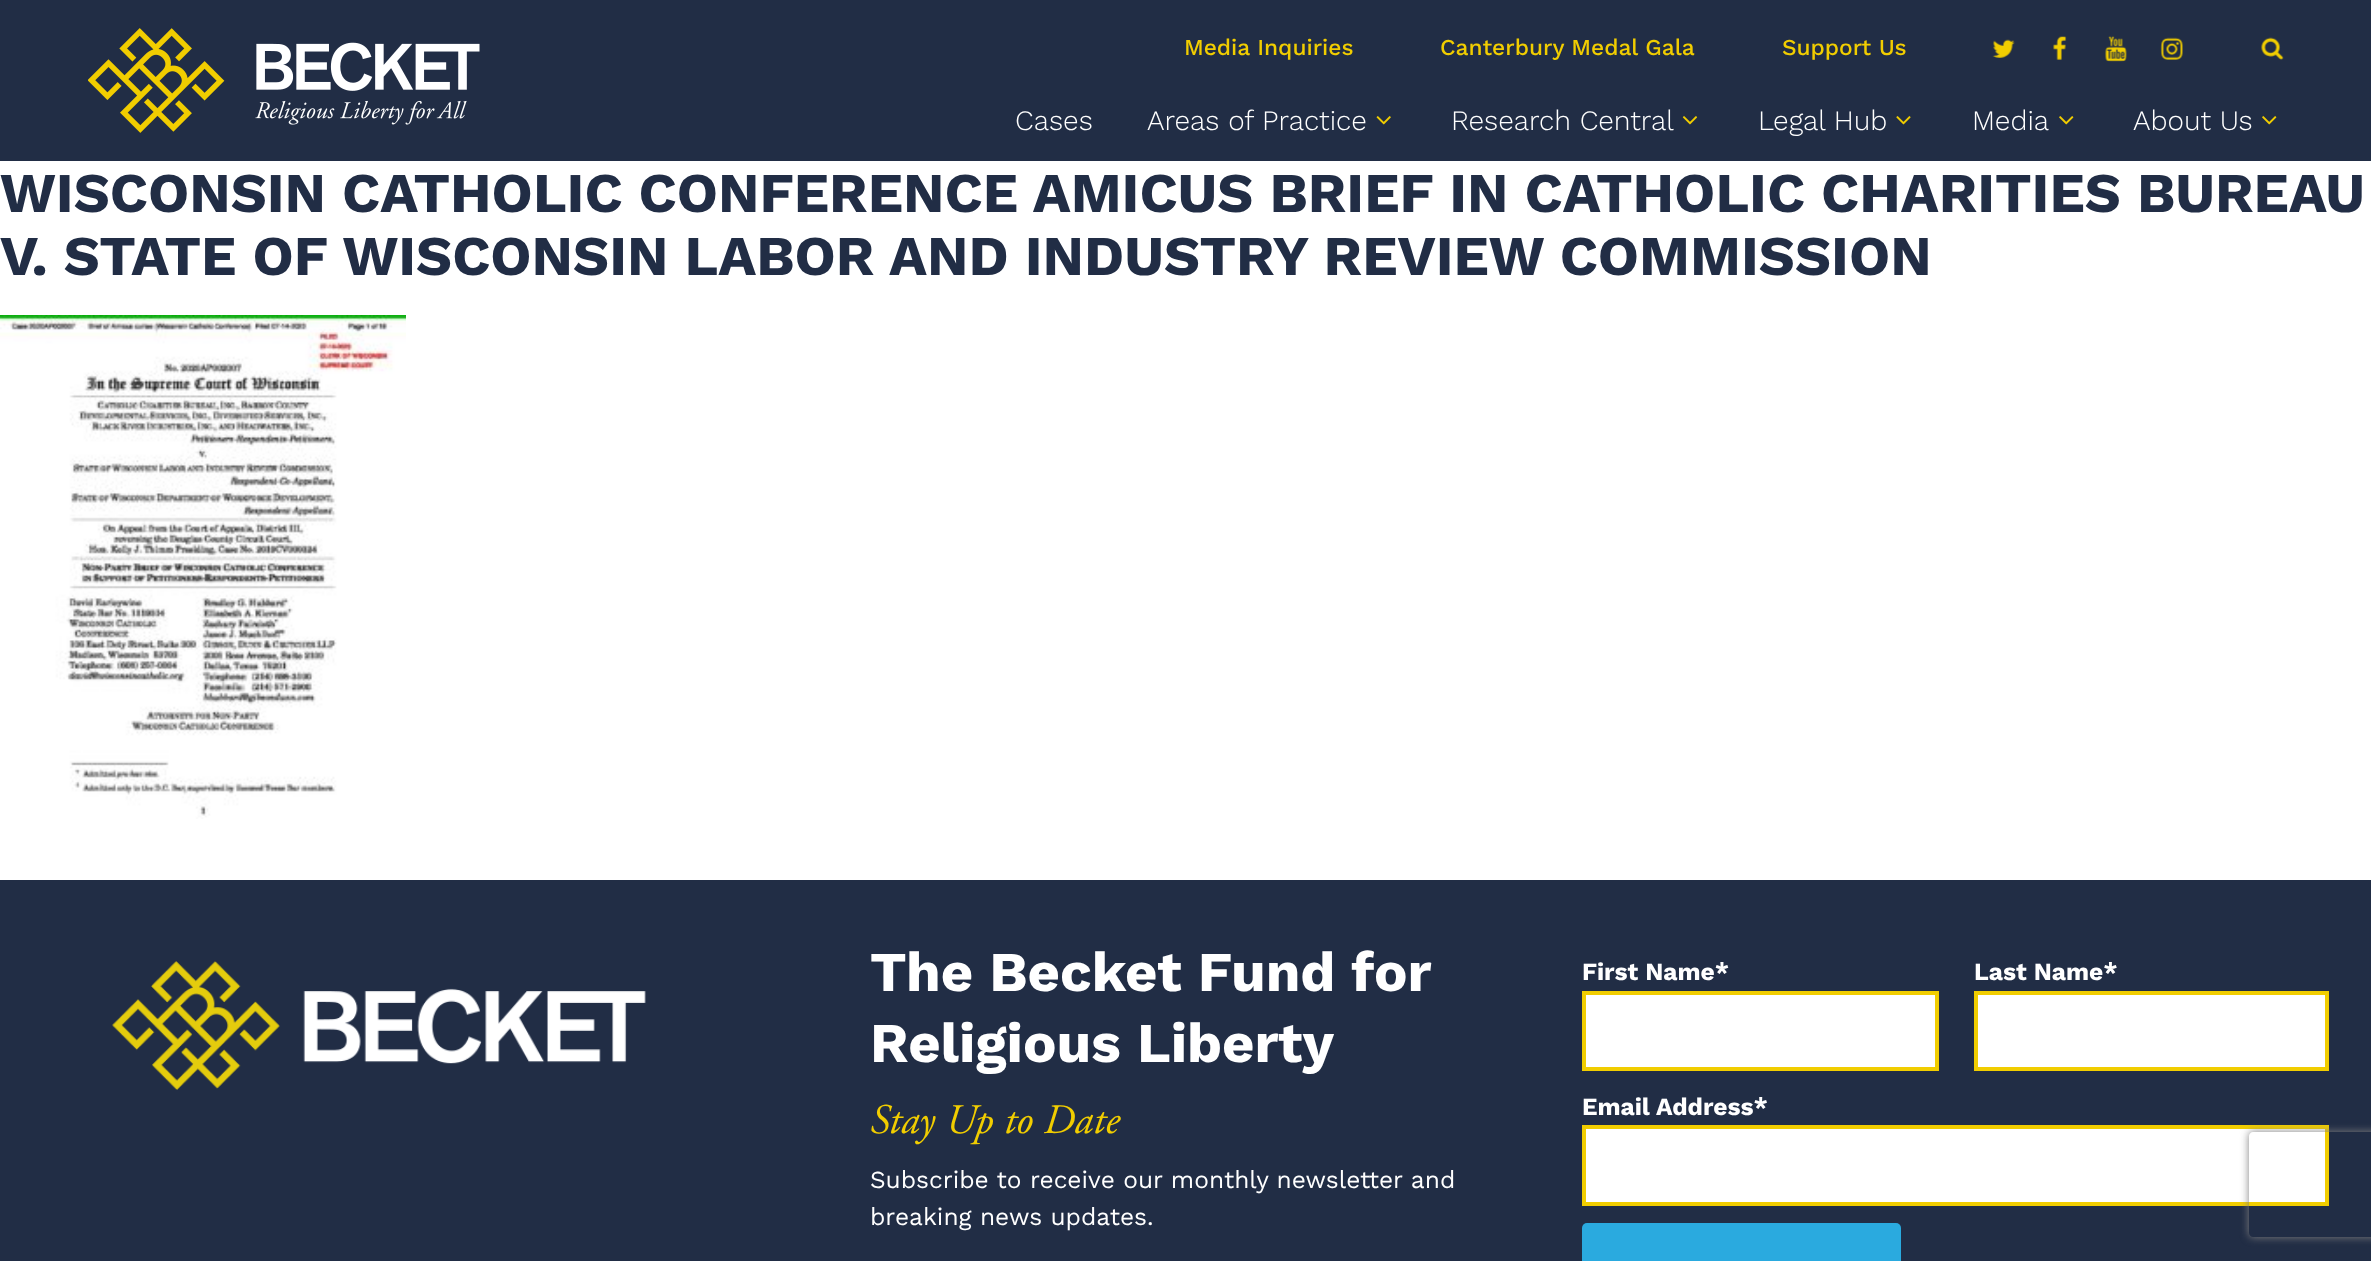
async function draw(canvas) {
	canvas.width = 2371;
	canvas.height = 1261;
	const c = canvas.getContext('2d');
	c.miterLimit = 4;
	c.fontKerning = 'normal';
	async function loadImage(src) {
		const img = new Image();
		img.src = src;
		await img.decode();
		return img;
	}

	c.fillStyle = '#fff';
	c.fillRect(0, 0, 2371, 1261);
	c.fillStyle = '#212d45';
	c.fillRect(0, 0, 2371, 161);
	c.drawImage(await loadImage('img1.png'), 88, 28, 392, 105);
	c.font = '500 22.75px Work Sans';
	c.fillStyle = '#f1cd00';
	for (const [text, x, y] of [
		['Media Inquiries', 1184, 55],
		['Canterbury Medal Gala', 1440, 55],
		['Support Us', 1782, 55],
	]) {
		c.fillText(text, x, y);
	}
	c.drawImage(await loadImage('img2.png'), 1992, 39, 23, 19);
	c.drawImage(await loadImage('img3.png'), 2053, 36, 14, 24);
	c.drawImage(await loadImage('img4.png'), 2105, 36, 22, 26);
	c.drawImage(await loadImage('img5.png'), 2160, 37, 23, 23);
	c.drawImage(await loadImage('img6.png'), 2261, 37, 23, 23);
	c.font = '300 28px Work Sans';
	c.fillStyle = '#fff';
	c.fillText('Cases', 1015, 130);
	c.fillText('Areas of Practice', 1147, 130);
	c.drawImage(await loadImage('img7.png'), 1376, 116, 15, 9);
	c.fillText('Research Central', 1451, 130);
	c.drawImage(await loadImage('img8.png'), 1682, 116, 16, 9);
	c.fillText('Legal Hub', 1758, 130);
	c.drawImage(await loadImage('img9.png'), 1896, 116, 15, 9);
	c.fillText('Media', 1972, 130);
	c.drawImage(await loadImage('img10.png'), 2059, 116, 15, 9);
	c.fillText('About Us', 2133, 130);
	c.drawImage(await loadImage('img10.png'), 2262, 116, 15, 9);
	c.font = 'bold 56px Work Sans';
	c.fillStyle = '#212d45';
	c.fillText('WISCONSIN CATHOLIC CONFERENCE AMICUS BRIEF IN CATHOLIC CHARITIES BUREAU', 0, 212);
	c.fillText('V. STATE OF WISCONSIN LABOR AND INDUSTRY REVIEW COMMISSION', 0, 275);
	c.drawImage(await loadImage('img11.png'), 0, 315, 406, 504);
	c.fillRect(0, 880, 2371, 381);
	c.drawImage(await loadImage('img12.png'), 112, 961, 534, 129);
	c.fillStyle = '#fff';
	c.fillText('The Becket Fund for', 870, 991);
	c.fillText('Religious Liberty', 870, 1062);
	c.font = 'italic 42px Adobe Garamond';
	c.fillStyle = '#f1cd00';
	c.fillText('Stay Up to Date', 870, 1133);
	c.font = '24.5px Work Sans';
	c.fillStyle = '#fff';
	c.fillText('Subscribe to receive our monthly newsletter and', 870, 1188);
	c.fillText('breaking news updates.', 870, 1225);
	c.font = 'bold 24.5px Work Sans';
	c.fillText('First Name*', 1582, 980);
	c.beginPath();
	c.rect(1584, 993, 353, 76);
	c.fill();
	c.strokeStyle = '#f1cd00';
	c.lineWidth = 4;
	c.stroke();
	c.fillText('Last Name*', 1974, 980);
	c.beginPath();
	c.rect(1976, 993, 351, 76);
	c.fill();
	c.stroke();
	c.fillText('Email Address*', 1582, 1115);
	c.beginPath();
	c.rect(1584, 1127, 743, 77);
	c.fill();
	c.stroke();
	c.fillStyle = '#2aaadf';
	c.beginPath();
	c.roundRect(1582, 1223, 319, 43, 5);
	c.fill();
	c.save();
	c.beginPath();
	c.moveTo(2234, 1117);
	c.lineTo(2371, 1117);
	c.lineTo(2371, 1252);
	c.lineTo(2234, 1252);
	c.closePath();
	c.moveTo(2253, 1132);
	c.lineTo(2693, 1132);
	c.bezierCurveTo(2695, 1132, 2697, 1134, 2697, 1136);
	c.lineTo(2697, 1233);
	c.bezierCurveTo(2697, 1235, 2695, 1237, 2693, 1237);
	c.lineTo(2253, 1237);
	c.bezierCurveTo(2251, 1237, 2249, 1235, 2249, 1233);
	c.lineTo(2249, 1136);
	c.bezierCurveTo(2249, 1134, 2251, 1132, 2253, 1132);
	c.closePath();
	c.clip('evenodd');
	c.fillStyle = '#808080';
	c.filter = 'blur(4.5px)';
	c.beginPath();
	c.roundRect(2249, 1132, 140, 105, 4);
	c.fill();
	c.filter = 'none';
	c.restore();
}

draw(document.querySelector('canvas'));
